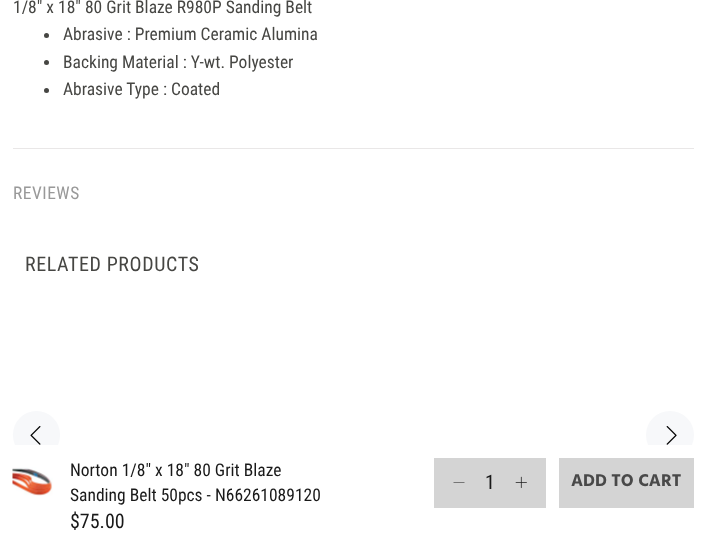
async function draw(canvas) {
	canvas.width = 706;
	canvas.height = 547;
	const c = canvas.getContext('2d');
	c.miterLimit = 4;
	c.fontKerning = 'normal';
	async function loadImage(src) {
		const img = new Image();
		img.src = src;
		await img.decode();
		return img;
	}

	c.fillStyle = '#fff';
	c.fillRect(0, 0, 706, 547);
	c.fillStyle = '#e9e7e7';
	c.fillRect(13, 148, 681, 1);
	c.font = '17.5px Roboto Condensed';
	c.fillStyle = '#464643';
	c.fillText('1/8" x 18" 80 Grit Blaze R980P Sanding Belt', 13, 13);
	c.beginPath();
	c.arc(46.5, 35.5, 2.5, 0, 2 * Math.PI);
	c.fill();
	c.fillText('Abrasive : Premium Ceramic Alumina', 63, 40);
	c.beginPath();
	c.arc(46.5, 62.5, 2.5, 0, 2 * Math.PI);
	c.fill();
	c.fillText('Backing Material : Y-wt. Polyester', 63, 68);
	c.beginPath();
	c.arc(46.5, 90.5, 2.5, 0, 2 * Math.PI);
	c.fill();
	c.fillText('Abrasive Type : Coated', 63, 95);
	c.letterSpacing = '0.5px';
	c.fillStyle = '#999';
	c.fillText('REVIEWS', 13, 199);
	c.letterSpacing = '0.6px';
	c.font = '20px Roboto Condensed';
	c.fillStyle = '#464643';
	c.fillText('RELATED PRODUCTS', 25, 271);
	c.fillStyle = '#f7f8fa';
	c.beginPath();
	c.roundRect(13, 411, 47, 48, 23.5);
	c.fill();
	c.drawImage(await loadImage('img1.png'), 30, 426, 11, 19);
	c.beginPath();
	c.arc(670, 435, 24, 0, 2 * Math.PI);
	c.fill();
	c.drawImage(await loadImage('img2.png'), 666, 426, 11, 19);
	c.fillStyle = '#fff';
	c.fillRect(15, 445, 677, 14);
	c.drawImage(await loadImage('img3.png'), 12, 467, 41, 29);
	c.letterSpacing = '0px';
	c.font = '17.5px Roboto Condensed';
	c.fillStyle = '#191919';
	c.fillText('Norton 1/8" x 18" 80 Grit Blaze', 70, 476);
	c.fillText('Sanding Belt 50pcs - N66261089120', 70, 501);
	c.font = '20px Roboto Condensed';
	c.fillText('$75.00', 70, 528);
	c.fillStyle = '#d4d4d4';
	c.fillRect(434, 458, 112, 50);
	c.fillStyle = '#191919';
	c.beginPath();
	c.moveTo(464.5, 482);
	c.lineTo(464.5, 482.5);
	c.lineTo(453.5, 482.5);
	c.lineTo(453.5, 482);
	c.closePath();
	c.fill();
	c.fillText('1', 485, 489);
	c.drawImage(await loadImage('img4.png'), 515, 476, 12, 12);
	c.fillStyle = '#d4d4d4';
	c.fillRect(559, 458, 135, 50);
	c.font = 'bold 17.5px Hind';
	c.fillStyle = '#494949';
	c.fillText('ADD TO CART', 571, 486);
}

draw(document.querySelector('canvas'));
